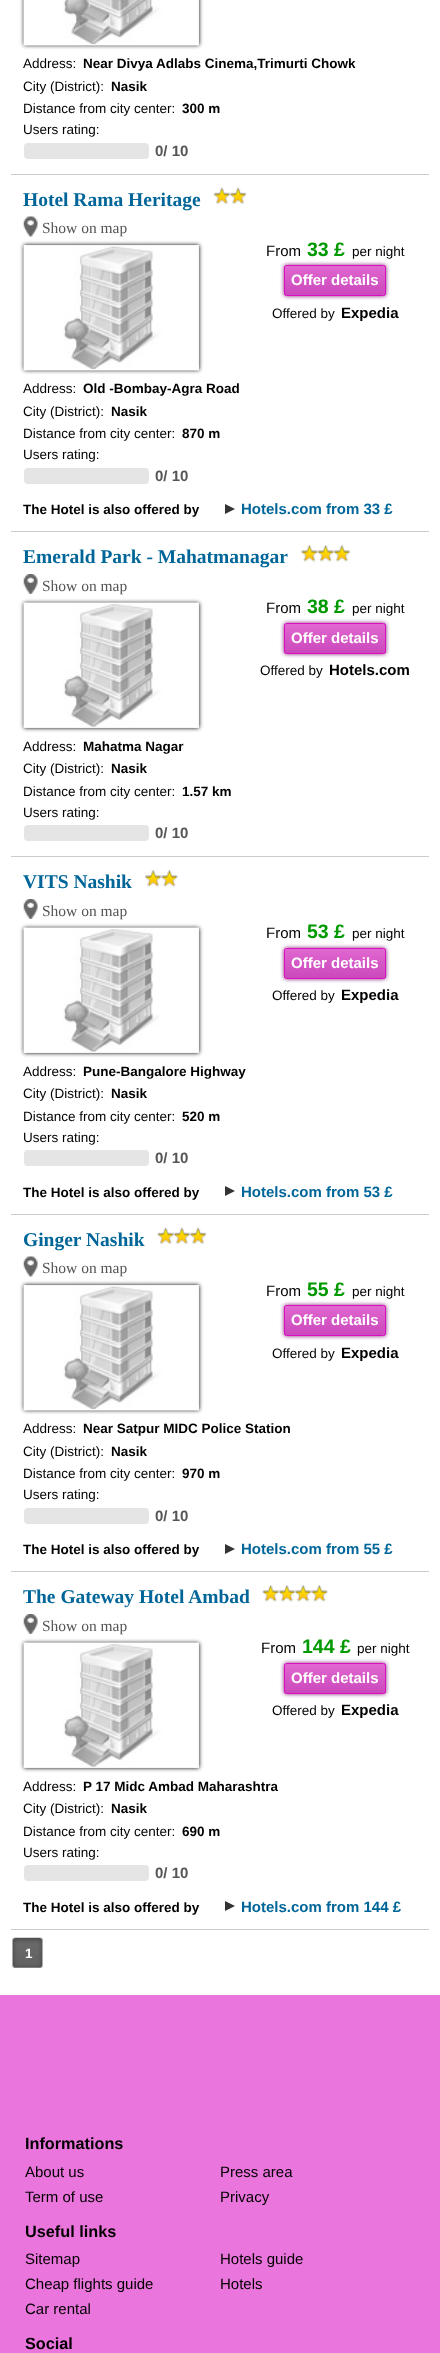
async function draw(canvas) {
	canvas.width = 440;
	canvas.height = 2353;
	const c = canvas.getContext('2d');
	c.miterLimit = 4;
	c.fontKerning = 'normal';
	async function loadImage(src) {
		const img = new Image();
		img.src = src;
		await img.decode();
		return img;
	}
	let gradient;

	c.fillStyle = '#fff';
	c.fillRect(0, 0, 440, 2353);
	c.fillStyle = '#ccc';
	c.fillRect(11, 174, 418, 1);
	c.fillStyle = '#000';
	c.filter = 'blur(2px)';
	c.beginPath();
	c.rect(24, -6, 175, 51);
	c.fill();
	c.filter = 'none';
	c.drawImage(await loadImage('img1.png'), 23, 0, 176, 46);
	c.drawImage(await loadImage('img2.png'), 23, 0, 176, 46);
	c.font = '13.5px Liberation Sans';
	c.fillText('Address:', 23, 68);
	c.font = 'bold 13.5px Liberation Sans';
	c.fillText('Near Divya Adlabs Cinema,Trimurti Chowk', 83, 68);
	c.font = '13.5px Liberation Sans';
	c.fillText('City (District):', 23, 91);
	c.font = 'bold 13.5px Liberation Sans';
	c.fillText('Nasik', 111, 91);
	c.font = '13.5px Liberation Sans';
	c.fillText('Distance from city center:', 23, 113);
	c.font = 'bold 13.5px Liberation Sans';
	c.fillText('300 m', 182, 113);
	c.font = '13.5px Liberation Sans';
	c.fillText('Users rating:', 23, 134);
	c.fillStyle = '#e5e5e5';
	c.beginPath();
	c.roundRect(24, 143, 125, 16, 4);
	c.fill();
	c.font = 'bold 15px Liberation Sans';
	c.fillStyle = '#555';
	c.fillText('0/ 10', 155, 156);
	c.fillStyle = '#ccc';
	c.fillRect(11, 531, 418, 1);
	c.font = 'bold 19.5px Liberation Serif';
	c.fillStyle = '#069';
	c.fillText('Hotel Rama Heritage', 23, 206);
	c.drawImage(await loadImage('img3.png'), 213, 187, 34, 17);
	c.drawImage(await loadImage('img4.png'), 23, 216, 15, 21);
	c.font = '15.5px Liberation Serif';
	c.fillStyle = '#555';
	c.fillText('Show on map', 42, 233);
	c.fillStyle = '#000';
	c.filter = 'blur(2px)';
	c.beginPath();
	c.rect(24, 245, 175, 125);
	c.fill();
	c.filter = 'none';
	c.drawImage(await loadImage('img5.png'), 23, 245, 176, 126);
	c.drawImage(await loadImage('img6.png'), 23, 245, 176, 126);
	c.font = '15px Liberation Sans';
	c.fillText('From', 266, 256);
	c.font = 'bold 19.5px Liberation Sans';
	c.fillStyle = '#090';
	c.fillText('33 £', 307, 256);
	c.font = '13.5px Liberation Sans';
	c.fillStyle = '#000';
	c.fillText('per night', 352, 256);
	c.fillStyle = '#821a75';
	c.filter = 'blur(2px)';
	c.beginPath();
	c.roundRect(284, 265, 102, 31, 2.5);
	c.fill();
	c.filter = 'none';
	c.save();
	c.beginPath();
	c.roundRect(284, 265, 102, 31, 2.5);
	c.clip();
	gradient = c.createLinearGradient(335, 266, 335, 295);
	gradient.addColorStop(0, '#e067d0');
	gradient.addColorStop(1, '#cb48bc');
	c.fillStyle = gradient;
	c.fillRect(284, 266, 102, 29);
	c.restore();
	c.beginPath();
	c.roundRect(284.5, 265.5, 101, 30, 2);
	c.strokeStyle = '#db0fc0';
	c.stroke();
	c.font = 'bold 15px Liberation Sans';
	c.fillStyle = '#fff';
	c.fillText('Offer details', 291, 285);
	c.font = '13.5px Liberation Sans';
	c.fillStyle = '#000';
	c.fillText('Offered by', 272, 318);
	c.font = 'bold 15px Liberation Sans';
	c.fillText('Expedia', 341, 318);
	c.font = '13.5px Liberation Sans';
	c.fillText('Address:', 23, 393);
	c.font = 'bold 13.5px Liberation Sans';
	c.fillText('Old -Bombay-Agra Road', 83, 393);
	c.font = '13.5px Liberation Sans';
	c.fillText('City (District):', 23, 416);
	c.font = 'bold 13.5px Liberation Sans';
	c.fillText('Nasik', 111, 416);
	c.font = '13.5px Liberation Sans';
	c.fillText('Distance from city center:', 23, 438);
	c.font = 'bold 13.5px Liberation Sans';
	c.fillText('870 m', 182, 438);
	c.font = '13.5px Liberation Sans';
	c.fillText('Users rating:', 23, 459);
	c.fillStyle = '#e5e5e5';
	c.beginPath();
	c.roundRect(24, 468, 125, 16, 4);
	c.fill();
	c.font = 'bold 15px Liberation Sans';
	c.fillStyle = '#555';
	c.fillText('0/ 10', 155, 481);
	c.font = 'bold 13.5px Liberation Sans';
	c.fillStyle = '#000';
	c.fillText('The Hotel is also offered by', 23, 514);
	c.fillStyle = '#333';
	c.beginPath();
	c.moveTo(225, 514);
	c.lineTo(225, 504);
	c.lineTo(235, 509);
	c.closePath();
	c.fill();
	c.font = 'bold 15px Liberation Sans';
	c.fillStyle = '#069';
	c.fillText('Hotels.com from 33 £', 241, 514);
	c.fillStyle = '#ccc';
	c.fillRect(11, 856, 418, 1);
	c.font = 'bold 19.5px Liberation Serif';
	c.fillStyle = '#069';
	c.fillText('Emerald Park - Mahatmanagar', 23, 563);
	c.drawImage(await loadImage('img7.png'), 301, 545, 49, 17);
	c.drawImage(await loadImage('img8.png'), 23, 574, 15, 20);
	c.font = '15.5px Liberation Serif';
	c.fillStyle = '#555';
	c.fillText('Show on map', 42, 591);
	c.fillStyle = '#000';
	c.filter = 'blur(2px)';
	c.beginPath();
	c.rect(24, 603, 175, 125);
	c.fill();
	c.filter = 'none';
	c.drawImage(await loadImage('img9.png'), 23, 602, 176, 126);
	c.drawImage(await loadImage('img10.png'), 23, 602, 176, 126);
	c.font = '15px Liberation Sans';
	c.fillText('From', 266, 613);
	c.font = 'bold 19.5px Liberation Sans';
	c.fillStyle = '#090';
	c.fillText('38 £', 307, 613);
	c.font = '13.5px Liberation Sans';
	c.fillStyle = '#000';
	c.fillText('per night', 352, 613);
	c.fillStyle = '#821a75';
	c.filter = 'blur(2px)';
	c.beginPath();
	c.roundRect(284, 623, 102, 31, 2.5);
	c.fill();
	c.filter = 'none';
	c.save();
	c.beginPath();
	c.roundRect(284, 623, 102, 31, 2.5);
	c.clip();
	gradient = c.createLinearGradient(335, 624, 335, 653);
	gradient.addColorStop(0, '#e067d0');
	gradient.addColorStop(1, '#cb48bc');
	c.fillStyle = gradient;
	c.fillRect(284, 624, 102, 29);
	c.restore();
	c.beginPath();
	c.roundRect(284.5, 623.5, 101, 30, 2);
	c.stroke();
	c.font = 'bold 15px Liberation Sans';
	c.fillStyle = '#fff';
	c.fillText('Offer details', 291, 643);
	c.font = '13.5px Liberation Sans';
	c.fillStyle = '#000';
	c.fillText('Offered by', 260, 675);
	c.font = 'bold 15px Liberation Sans';
	c.fillText('Hotels.com', 329, 675);
	c.font = '13.5px Liberation Sans';
	c.fillText('Address:', 23, 751);
	c.font = 'bold 13.5px Liberation Sans';
	c.fillText('Mahatma Nagar', 83, 751);
	c.font = '13.5px Liberation Sans';
	c.fillText('City (District):', 23, 773);
	c.font = 'bold 13.5px Liberation Sans';
	c.fillText('Nasik', 111, 773);
	c.font = '13.5px Liberation Sans';
	c.fillText('Distance from city center:', 23, 796);
	c.font = 'bold 13.5px Liberation Sans';
	c.fillText('1.57 km', 182, 796);
	c.font = '13.5px Liberation Sans';
	c.fillText('Users rating:', 23, 817);
	c.fillStyle = '#e5e5e5';
	c.beginPath();
	c.roundRect(24, 825, 125, 16, 4);
	c.fill();
	c.font = 'bold 15px Liberation Sans';
	c.fillStyle = '#555';
	c.fillText('0/ 10', 155, 838);
	c.fillStyle = '#ccc';
	c.fillRect(11, 1214, 418, 1);
	c.font = 'bold 19.5px Liberation Serif';
	c.fillStyle = '#069';
	c.fillText('VITS Nashik', 23, 888);
	c.drawImage(await loadImage('img11.png'), 145, 870, 33, 17);
	c.drawImage(await loadImage('img8.png'), 23, 899, 15, 20);
	c.font = '15.5px Liberation Serif';
	c.fillStyle = '#555';
	c.fillText('Show on map', 42, 916);
	c.fillStyle = '#000';
	c.filter = 'blur(2px)';
	c.beginPath();
	c.rect(24, 928, 175, 125);
	c.fill();
	c.filter = 'none';
	c.drawImage(await loadImage('img12.png'), 23, 927, 176, 126);
	c.drawImage(await loadImage('img13.png'), 23, 927, 176, 126);
	c.font = '15px Liberation Sans';
	c.fillText('From', 266, 938);
	c.font = 'bold 19.5px Liberation Sans';
	c.fillStyle = '#090';
	c.fillText('53 £', 307, 938);
	c.font = '13.5px Liberation Sans';
	c.fillStyle = '#000';
	c.fillText('per night', 352, 938);
	c.fillStyle = '#821a75';
	c.filter = 'blur(2px)';
	c.beginPath();
	c.roundRect(284, 948, 102, 31, 2.5);
	c.fill();
	c.filter = 'none';
	c.save();
	c.beginPath();
	c.roundRect(284, 948, 102, 31, 2.5);
	c.clip();
	gradient = c.createLinearGradient(335, 949, 335, 978);
	gradient.addColorStop(0, '#e067d0');
	gradient.addColorStop(1, '#cb48bc');
	c.fillStyle = gradient;
	c.fillRect(284, 949, 102, 29);
	c.restore();
	c.beginPath();
	c.roundRect(284.5, 948.5, 101, 30, 2);
	c.stroke();
	c.font = 'bold 15px Liberation Sans';
	c.fillStyle = '#fff';
	c.fillText('Offer details', 291, 968);
	c.font = '13.5px Liberation Sans';
	c.fillStyle = '#000';
	c.fillText('Offered by', 272, 1000);
	c.font = 'bold 15px Liberation Sans';
	c.fillText('Expedia', 341, 1000);
	c.font = '13.5px Liberation Sans';
	c.fillText('Address:', 23, 1076);
	c.font = 'bold 13.5px Liberation Sans';
	c.fillText('Pune-Bangalore Highway', 83, 1076);
	c.font = '13.5px Liberation Sans';
	c.fillText('City (District):', 23, 1098);
	c.font = 'bold 13.5px Liberation Sans';
	c.fillText('Nasik', 111, 1098);
	c.font = '13.5px Liberation Sans';
	c.fillText('Distance from city center:', 23, 1121);
	c.font = 'bold 13.5px Liberation Sans';
	c.fillText('520 m', 182, 1121);
	c.font = '13.5px Liberation Sans';
	c.fillText('Users rating:', 23, 1142);
	c.fillStyle = '#e5e5e5';
	c.beginPath();
	c.roundRect(24, 1150, 125, 16, 4);
	c.fill();
	c.font = 'bold 15px Liberation Sans';
	c.fillStyle = '#555';
	c.fillText('0/ 10', 155, 1163);
	c.font = 'bold 13.5px Liberation Sans';
	c.fillStyle = '#000';
	c.fillText('The Hotel is also offered by', 23, 1197);
	c.fillStyle = '#333';
	c.beginPath();
	c.moveTo(225, 1196);
	c.lineTo(225, 1186);
	c.lineTo(235, 1191);
	c.closePath();
	c.fill();
	c.font = 'bold 15px Liberation Sans';
	c.fillStyle = '#069';
	c.fillText('Hotels.com from 53 £', 241, 1197);
	c.fillStyle = '#ccc';
	c.fillRect(11, 1571, 418, 1);
	c.font = 'bold 19.5px Liberation Serif';
	c.fillStyle = '#069';
	c.fillText('Ginger Nashik', 23, 1246);
	c.drawImage(await loadImage('img14.png'), 157, 1227, 50, 17);
	c.drawImage(await loadImage('img4.png'), 23, 1256, 15, 21);
	c.font = '15.5px Liberation Serif';
	c.fillStyle = '#555';
	c.fillText('Show on map', 42, 1273);
	c.fillStyle = '#000';
	c.filter = 'blur(2px)';
	c.beginPath();
	c.rect(24, 1285, 175, 125);
	c.fill();
	c.filter = 'none';
	c.drawImage(await loadImage('img15.png'), 23, 1285, 176, 126);
	c.drawImage(await loadImage('img16.png'), 23, 1285, 176, 126);
	c.font = '15px Liberation Sans';
	c.fillText('From', 266, 1296);
	c.font = 'bold 19.5px Liberation Sans';
	c.fillStyle = '#090';
	c.fillText('55 £', 307, 1296);
	c.font = '13.5px Liberation Sans';
	c.fillStyle = '#000';
	c.fillText('per night', 352, 1296);
	c.fillStyle = '#821a75';
	c.filter = 'blur(2px)';
	c.beginPath();
	c.roundRect(284, 1305, 102, 31, 2.5);
	c.fill();
	c.filter = 'none';
	c.save();
	c.beginPath();
	c.roundRect(284, 1305, 102, 31, 2.5);
	c.clip();
	gradient = c.createLinearGradient(335, 1306, 335, 1335);
	gradient.addColorStop(0, '#e067d0');
	gradient.addColorStop(1, '#cb48bc');
	c.fillStyle = gradient;
	c.fillRect(284, 1306, 102, 29);
	c.restore();
	c.beginPath();
	c.roundRect(284.5, 1305.5, 101, 30, 2);
	c.stroke();
	c.font = 'bold 15px Liberation Sans';
	c.fillStyle = '#fff';
	c.fillText('Offer details', 291, 1325);
	c.font = '13.5px Liberation Sans';
	c.fillStyle = '#000';
	c.fillText('Offered by', 272, 1358);
	c.font = 'bold 15px Liberation Sans';
	c.fillText('Expedia', 341, 1358);
	c.font = '13.5px Liberation Sans';
	c.fillText('Address:', 23, 1433);
	c.font = 'bold 13.5px Liberation Sans';
	c.fillText('Near Satpur MIDC Police Station', 83, 1433);
	c.font = '13.5px Liberation Sans';
	c.fillText('City (District):', 23, 1456);
	c.font = 'bold 13.5px Liberation Sans';
	c.fillText('Nasik', 111, 1456);
	c.font = '13.5px Liberation Sans';
	c.fillText('Distance from city center:', 23, 1478);
	c.font = 'bold 13.5px Liberation Sans';
	c.fillText('970 m', 182, 1478);
	c.font = '13.5px Liberation Sans';
	c.fillText('Users rating:', 23, 1499);
	c.fillStyle = '#e5e5e5';
	c.beginPath();
	c.roundRect(24, 1508, 125, 16, 4);
	c.fill();
	c.font = 'bold 15px Liberation Sans';
	c.fillStyle = '#555';
	c.fillText('0/ 10', 155, 1521);
	c.font = 'bold 13.5px Liberation Sans';
	c.fillStyle = '#000';
	c.fillText('The Hotel is also offered by', 23, 1554);
	c.fillStyle = '#333';
	c.beginPath();
	c.moveTo(225, 1554);
	c.lineTo(225, 1544);
	c.lineTo(235, 1549);
	c.closePath();
	c.fill();
	c.font = 'bold 15px Liberation Sans';
	c.fillStyle = '#069';
	c.fillText('Hotels.com from 55 £', 241, 1554);
	c.fillStyle = '#ccc';
	c.fillRect(11, 1929, 418, 1);
	c.font = 'bold 19.5px Liberation Serif';
	c.fillStyle = '#069';
	c.fillText('The Gateway Hotel Ambad', 23, 1603);
	c.drawImage(await loadImage('img17.png'), 262, 1585, 66, 17);
	c.drawImage(await loadImage('img8.png'), 23, 1614, 15, 20);
	c.font = '15.5px Liberation Serif';
	c.fillStyle = '#555';
	c.fillText('Show on map', 42, 1631);
	c.fillStyle = '#000';
	c.filter = 'blur(2px)';
	c.beginPath();
	c.rect(24, 1643, 175, 125);
	c.fill();
	c.filter = 'none';
	c.drawImage(await loadImage('img9.png'), 23, 1642, 176, 126);
	c.drawImage(await loadImage('img10.png'), 23, 1642, 176, 126);
	c.font = '15px Liberation Sans';
	c.fillText('From', 261, 1653);
	c.font = 'bold 19.5px Liberation Sans';
	c.fillStyle = '#090';
	c.fillText('144 £', 302, 1653);
	c.font = '13.5px Liberation Sans';
	c.fillStyle = '#000';
	c.fillText('per night', 357, 1653);
	c.fillStyle = '#821a75';
	c.filter = 'blur(2px)';
	c.beginPath();
	c.roundRect(284, 1663, 102, 31, 2.5);
	c.fill();
	c.filter = 'none';
	c.save();
	c.beginPath();
	c.roundRect(284, 1663, 102, 31, 2.5);
	c.clip();
	gradient = c.createLinearGradient(335, 1664, 335, 1693);
	gradient.addColorStop(0, '#e067d0');
	gradient.addColorStop(1, '#cb48bc');
	c.fillStyle = gradient;
	c.fillRect(284, 1664, 102, 29);
	c.restore();
	c.beginPath();
	c.roundRect(284.5, 1663.5, 101, 30, 2);
	c.stroke();
	c.font = 'bold 15px Liberation Sans';
	c.fillStyle = '#fff';
	c.fillText('Offer details', 291, 1683);
	c.font = '13.5px Liberation Sans';
	c.fillStyle = '#000';
	c.fillText('Offered by', 272, 1715);
	c.font = 'bold 15px Liberation Sans';
	c.fillText('Expedia', 341, 1715);
	c.font = '13.5px Liberation Sans';
	c.fillText('Address:', 23, 1791);
	c.font = 'bold 13.5px Liberation Sans';
	c.fillText('P 17 Midc Ambad Maharashtra', 83, 1791);
	c.font = '13.5px Liberation Sans';
	c.fillText('City (District):', 23, 1813);
	c.font = 'bold 13.5px Liberation Sans';
	c.fillText('Nasik', 111, 1813);
	c.font = '13.5px Liberation Sans';
	c.fillText('Distance from city center:', 23, 1836);
	c.font = 'bold 13.5px Liberation Sans';
	c.fillText('690 m', 182, 1836);
	c.font = '13.5px Liberation Sans';
	c.fillText('Users rating:', 23, 1857);
	c.fillStyle = '#e5e5e5';
	c.beginPath();
	c.roundRect(24, 1865, 125, 16, 4);
	c.fill();
	c.font = 'bold 15px Liberation Sans';
	c.fillStyle = '#555';
	c.fillText('0/ 10', 155, 1878);
	c.font = 'bold 13.5px Liberation Sans';
	c.fillStyle = '#000';
	c.fillText('The Hotel is also offered by', 23, 1912);
	c.fillStyle = '#333';
	c.beginPath();
	c.moveTo(225, 1911);
	c.lineTo(225, 1901);
	c.lineTo(235, 1906);
	c.closePath();
	c.fill();
	c.font = 'bold 15px Liberation Sans';
	c.fillStyle = '#069';
	c.fillText('Hotels.com from 144 £', 241, 1912);
	c.drawImage(await loadImage('img18.png'), 12, 1937, 31, 31);
	c.font = 'bold 13.5px Liberation Sans';
	c.fillStyle = '#fff';
	c.fillText('1', 25, 1958);
	c.fillStyle = '#ea75dd';
	c.fillRect(0, 1995, 440, 358);
	c.font = 'bold 16.25px Liberation Sans';
	c.fillStyle = '#000';
	c.fillText('Informations', 25, 2149);
	c.font = '15px Liberation Sans';
	for (const [text, x, y] of [
		['About us', 25, 2177],
		['Press area', 220, 2177],
		['Term of use', 25, 2202],
		['Privacy', 220, 2202],
	]) {
		c.fillText(text, x, y);
	}
	c.font = 'bold 16.25px Liberation Sans';
	c.fillText('Useful links', 25, 2237);
	c.font = '15px Liberation Sans';
	for (const [text, x, y] of [
		['Sitemap', 25, 2264],
		['Hotels guide', 220, 2264],
		['Cheap flights guide', 25, 2289],
		['Hotels', 220, 2289],
		['Car rental', 25, 2314],
	]) {
		c.fillText(text, x, y);
	}
	c.font = 'bold 16.25px Liberation Sans';
	c.fillText('Social', 25, 2349);
}

draw(document.querySelector('canvas'));
